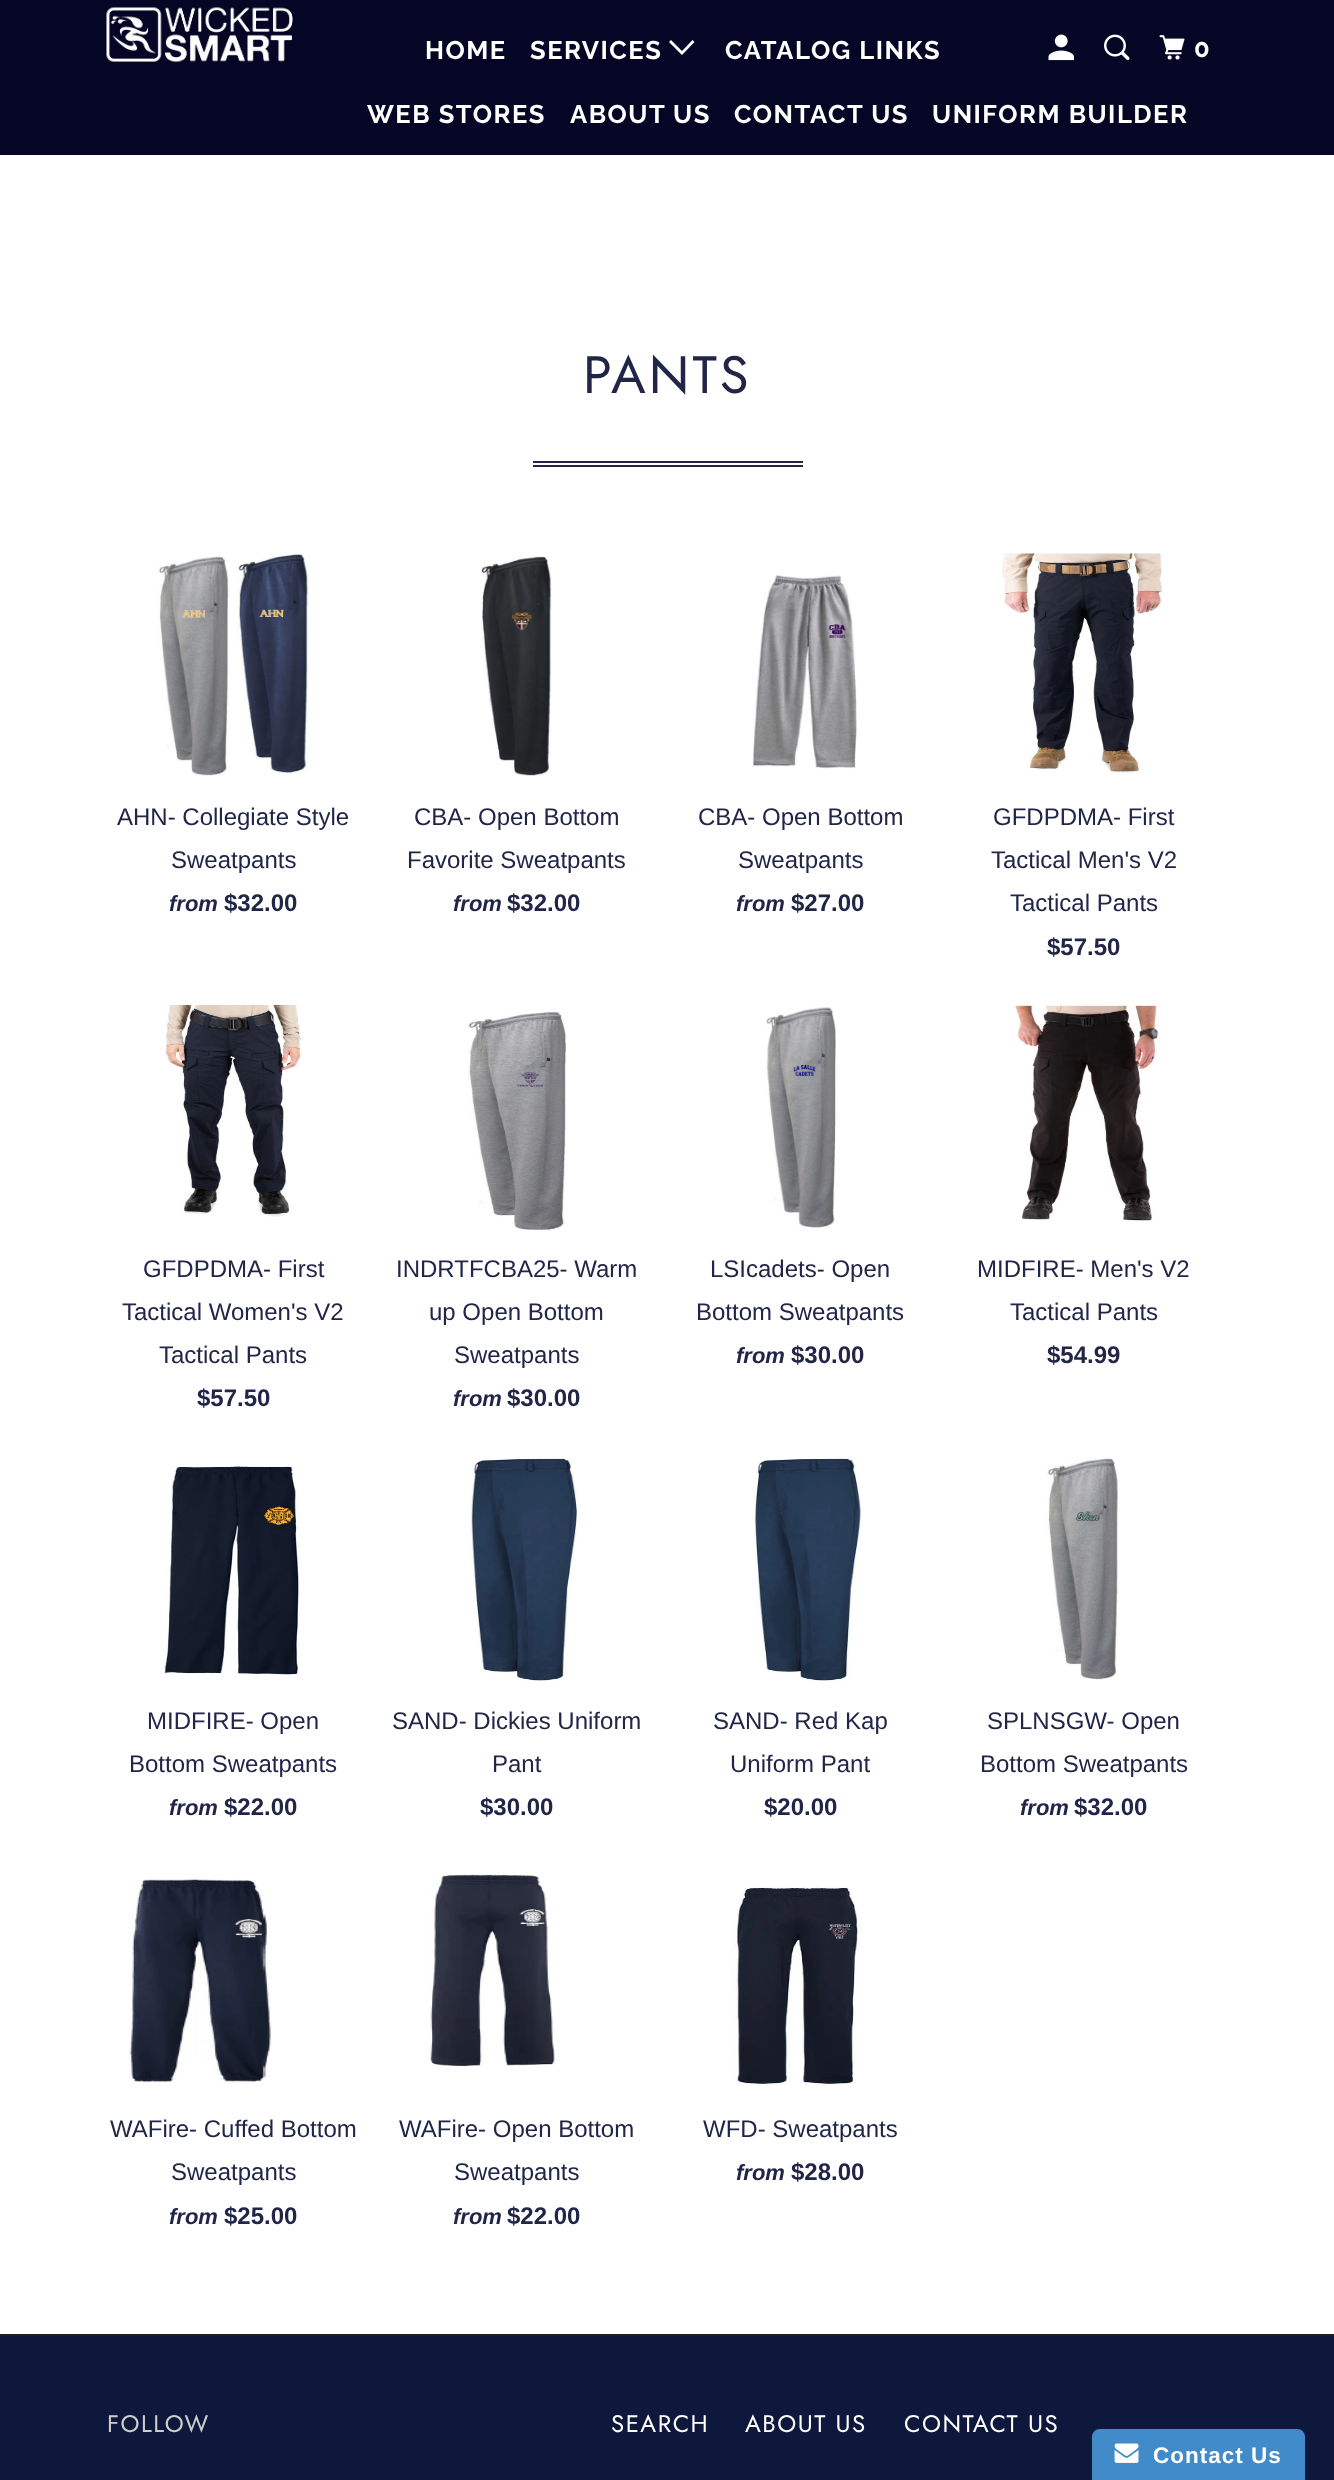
async function draw(canvas) {
	canvas.width = 1334;
	canvas.height = 2480;
	const c = canvas.getContext('2d');
	c.miterLimit = 4;
	c.fontKerning = 'normal';
	async function loadImage(src) {
		const img = new Image();
		img.src = src;
		await img.decode();
		return img;
	}

	c.fillStyle = '#fff';
	c.fillRect(0, 0, 1334, 2480);
	c.fillStyle = '#050625';
	c.fillRect(0, 0, 1334, 155);
	c.drawImage(await loadImage('img1.png'), 106, 7, 187, 55);
	c.letterSpacing = '1.5px';
	c.font = 'bold 25.5px Raleway';
	c.fillStyle = '#fff';
	c.fillText('HOME', 425, 59);
	c.fillText('SERVICES', 530, 59);
	c.beginPath();
	c.moveTo(675.5, 48.5);
	c.lineTo(669, 42);
	c.lineTo(671, 40);
	c.lineTo(682, 51);
	c.lineTo(692.5, 40);
	c.lineTo(694.5, 42);
	c.lineTo(682, 55);
	c.closePath();
	c.fill();
	for (const [text, x, y] of [
		['CATALOG LINKS', 725, 59],
		['WEB STORES', 367, 123],
		['ABOUT US', 570, 123],
		['CONTACT US', 734, 123],
		['UNIFORM BUILDER', 932, 123],
	]) {
		c.fillText(text, x, y);
	}
	c.drawImage(await loadImage('img2.png'), 1048, 34, 26, 27);
	c.drawImage(await loadImage('img3.png'), 1104, 34, 26, 27);
	c.drawImage(await loadImage('img4.png'), 1159, 35, 26, 25);
	c.fillText('0', 1194, 57);
	c.letterSpacing = '3px';
	c.font = '52.5px Jost';
	c.fillStyle = '#212548';
	c.fillText('PANTS', 583, 393);
	c.fillRect(533, 461, 270, 2);
	c.fillRect(533, 465, 270, 2);
	c.drawImage(await loadImage('img5.png'), 158, 554, 151, 222);
	c.letterSpacing = '0px';
	c.font = '24px Liberation Sans';
	c.fillText('AHN- Collegiate Style', 117, 825);
	c.fillText('Sweatpants', 171, 868);
	c.font = 'italic bold 22px Liberation Sans';
	c.fillText('from', 169, 911);
	c.font = 'bold 24px Liberation Sans';
	c.fillText('$32.00', 224, 911);
	c.drawImage(await loadImage('img6.png'), 481, 556, 71, 220);
	c.font = '24px Liberation Sans';
	c.fillText('CBA- Open Bottom', 414, 825);
	c.fillText('Favorite Sweatpants', 407, 868);
	c.font = 'italic bold 22px Liberation Sans';
	c.fillText('from', 453, 911);
	c.font = 'bold 24px Liberation Sans';
	c.fillText('$32.00', 507, 911);
	c.drawImage(await loadImage('img7.png'), 752, 575, 105, 194);
	c.font = '24px Liberation Sans';
	c.fillText('CBA- Open Bottom', 698, 825);
	c.fillText('Sweatpants', 738, 868);
	c.font = 'italic bold 22px Liberation Sans';
	c.fillText('from', 736, 911);
	c.font = 'bold 24px Liberation Sans';
	c.fillText('$27.00', 791, 911);
	c.drawImage(await loadImage('img8.png'), 1002, 553, 161, 220);
	c.font = '24px Liberation Sans';
	for (const [text, x, y] of [
		['GFDPDMA- First', 993, 825],
		['Tactical Men\'s V2', 991, 868],
		['Tactical Pants', 1010, 911],
	]) {
		c.fillText(text, x, y);
	}
	c.font = 'bold 24px Liberation Sans';
	c.fillText('$57.50', 1047, 955);
	c.drawImage(await loadImage('img9.png'), 164, 1005, 139, 212);
	c.font = '24px Liberation Sans';
	for (const [text, x, y] of [
		['GFDPDMA- First', 143, 1277],
		['Tactical Women\'s V2', 122, 1320],
		['Tactical Pants', 159, 1363],
	]) {
		c.fillText(text, x, y);
	}
	c.font = 'bold 24px Liberation Sans';
	c.fillText('$57.50', 197, 1406);
	c.drawImage(await loadImage('img10.png'), 468, 1011, 99, 219);
	c.font = '24px Liberation Sans';
	for (const [text, x, y] of [
		['INDRTFCBA25- Warm', 396, 1277],
		['up Open Bottom', 429, 1320],
		['Sweatpants', 454, 1363],
	]) {
		c.fillText(text, x, y);
	}
	c.font = 'italic bold 22px Liberation Sans';
	c.fillText('from', 453, 1406);
	c.font = 'bold 24px Liberation Sans';
	c.fillText('$30.00', 507, 1406);
	c.drawImage(await loadImage('img11.png'), 766, 1007, 70, 221);
	c.font = '24px Liberation Sans';
	c.fillText('LSIcadets- Open', 710, 1277);
	c.fillText('Bottom Sweatpants', 696, 1320);
	c.font = 'italic bold 22px Liberation Sans';
	c.fillText('from', 736, 1363);
	c.font = 'bold 24px Liberation Sans';
	c.fillText('$30.00', 791, 1363);
	c.drawImage(await loadImage('img12.png'), 1015, 1005, 144, 216);
	c.font = '24px Liberation Sans';
	c.fillText('MIDFIRE- Men\'s V2', 977, 1277);
	c.fillText('Tactical Pants', 1010, 1320);
	c.font = 'bold 24px Liberation Sans';
	c.fillText('$54.99', 1047, 1363);
	c.drawImage(await loadImage('img13.png'), 163, 1466, 136, 209);
	c.font = '24px Liberation Sans';
	c.fillText('MIDFIRE- Open', 147, 1729);
	c.fillText('Bottom Sweatpants', 129, 1772);
	c.font = 'italic bold 22px Liberation Sans';
	c.fillText('from', 169, 1815);
	c.font = 'bold 24px Liberation Sans';
	c.fillText('$22.00', 224, 1815);
	c.drawImage(await loadImage('img14.png'), 470, 1458, 108, 224);
	c.font = '24px Liberation Sans';
	c.fillText('SAND- Dickies Uniform', 392, 1729);
	c.fillText('Pant', 492, 1772);
	c.font = 'bold 24px Liberation Sans';
	c.fillText('$30.00', 480, 1815);
	c.drawImage(await loadImage('img15.png'), 754, 1457, 107, 225);
	c.font = '24px Liberation Sans';
	c.fillText('SAND- Red Kap', 713, 1729);
	c.fillText('Uniform Pant', 730, 1772);
	c.font = 'bold 24px Liberation Sans';
	c.fillText('$20.00', 764, 1815);
	c.drawImage(await loadImage('img16.png'), 1047, 1458, 71, 222);
	c.font = '24px Liberation Sans';
	c.fillText('SPLNSGW- Open', 987, 1729);
	c.fillText('Bottom Sweatpants', 980, 1772);
	c.font = 'italic bold 22px Liberation Sans';
	c.fillText('from', 1020, 1815);
	c.font = 'bold 24px Liberation Sans';
	c.fillText('$32.00', 1074, 1815);
	c.drawImage(await loadImage('img17.png'), 128, 1879, 144, 204);
	c.font = '24px Liberation Sans';
	c.fillText('WAFire- Cuffed Bottom', 110, 2137);
	c.fillText('Sweatpants', 171, 2180);
	c.font = 'italic bold 22px Liberation Sans';
	c.fillText('from', 169, 2224);
	c.font = 'bold 24px Liberation Sans';
	c.fillText('$25.00', 224, 2224);
	c.drawImage(await loadImage('img18.png'), 430, 1874, 126, 193);
	c.font = '24px Liberation Sans';
	c.fillText('WAFire- Open Bottom', 399, 2137);
	c.fillText('Sweatpants', 454, 2180);
	c.font = 'italic bold 22px Liberation Sans';
	c.fillText('from', 453, 2224);
	c.font = 'bold 24px Liberation Sans';
	c.fillText('$22.00', 507, 2224);
	c.drawImage(await loadImage('img19.png'), 732, 1885, 130, 200);
	c.font = '24px Liberation Sans';
	c.fillText('WFD- Sweatpants', 703, 2137);
	c.font = 'italic bold 22px Liberation Sans';
	c.fillText('from', 736, 2180);
	c.font = 'bold 24px Liberation Sans';
	c.fillText('$28.00', 791, 2180);
	c.fillStyle = '#0e183d';
	c.fillRect(0, 2336, 1334, 144);
	c.fillStyle = '#1b1f23';
	c.fillRect(0, 2334, 1334, 2);
	c.letterSpacing = '1.5px';
	c.font = '24px Jost';
	c.fillStyle = '#cdcdcd';
	c.fillText('FOLLOW', 107, 2432);
	c.fillStyle = '#fff';
	for (const [text, x, y] of [
		['SEARCH', 611, 2432],
		['ABOUT US', 745, 2432],
		['CONTACT US', 904, 2432],
	]) {
		c.fillText(text, x, y);
	}
	c.fillStyle = '#428bca';
	c.beginPath();
	c.moveTo(1100, 2429);
	c.lineTo(1297, 2429);
	c.bezierCurveTo(1301.5, 2429, 1305, 2432.5, 1305, 2437);
	c.lineTo(1305, 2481);
	c.lineTo(1092, 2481);
	c.lineTo(1092, 2437);
	c.bezierCurveTo(1092, 2432.5, 1095.5, 2429, 1100, 2429);
	c.closePath();
	c.fill();
	c.drawImage(await loadImage('img20.png'), 1114, 2443, 25, 20);
	c.letterSpacing = '1px';
	c.font = 'bold 22.5px Liberation Sans';
	c.fillStyle = '#fff';
	c.fillText('Contact Us', 1153, 2463);
}

draw(document.querySelector('canvas'));
